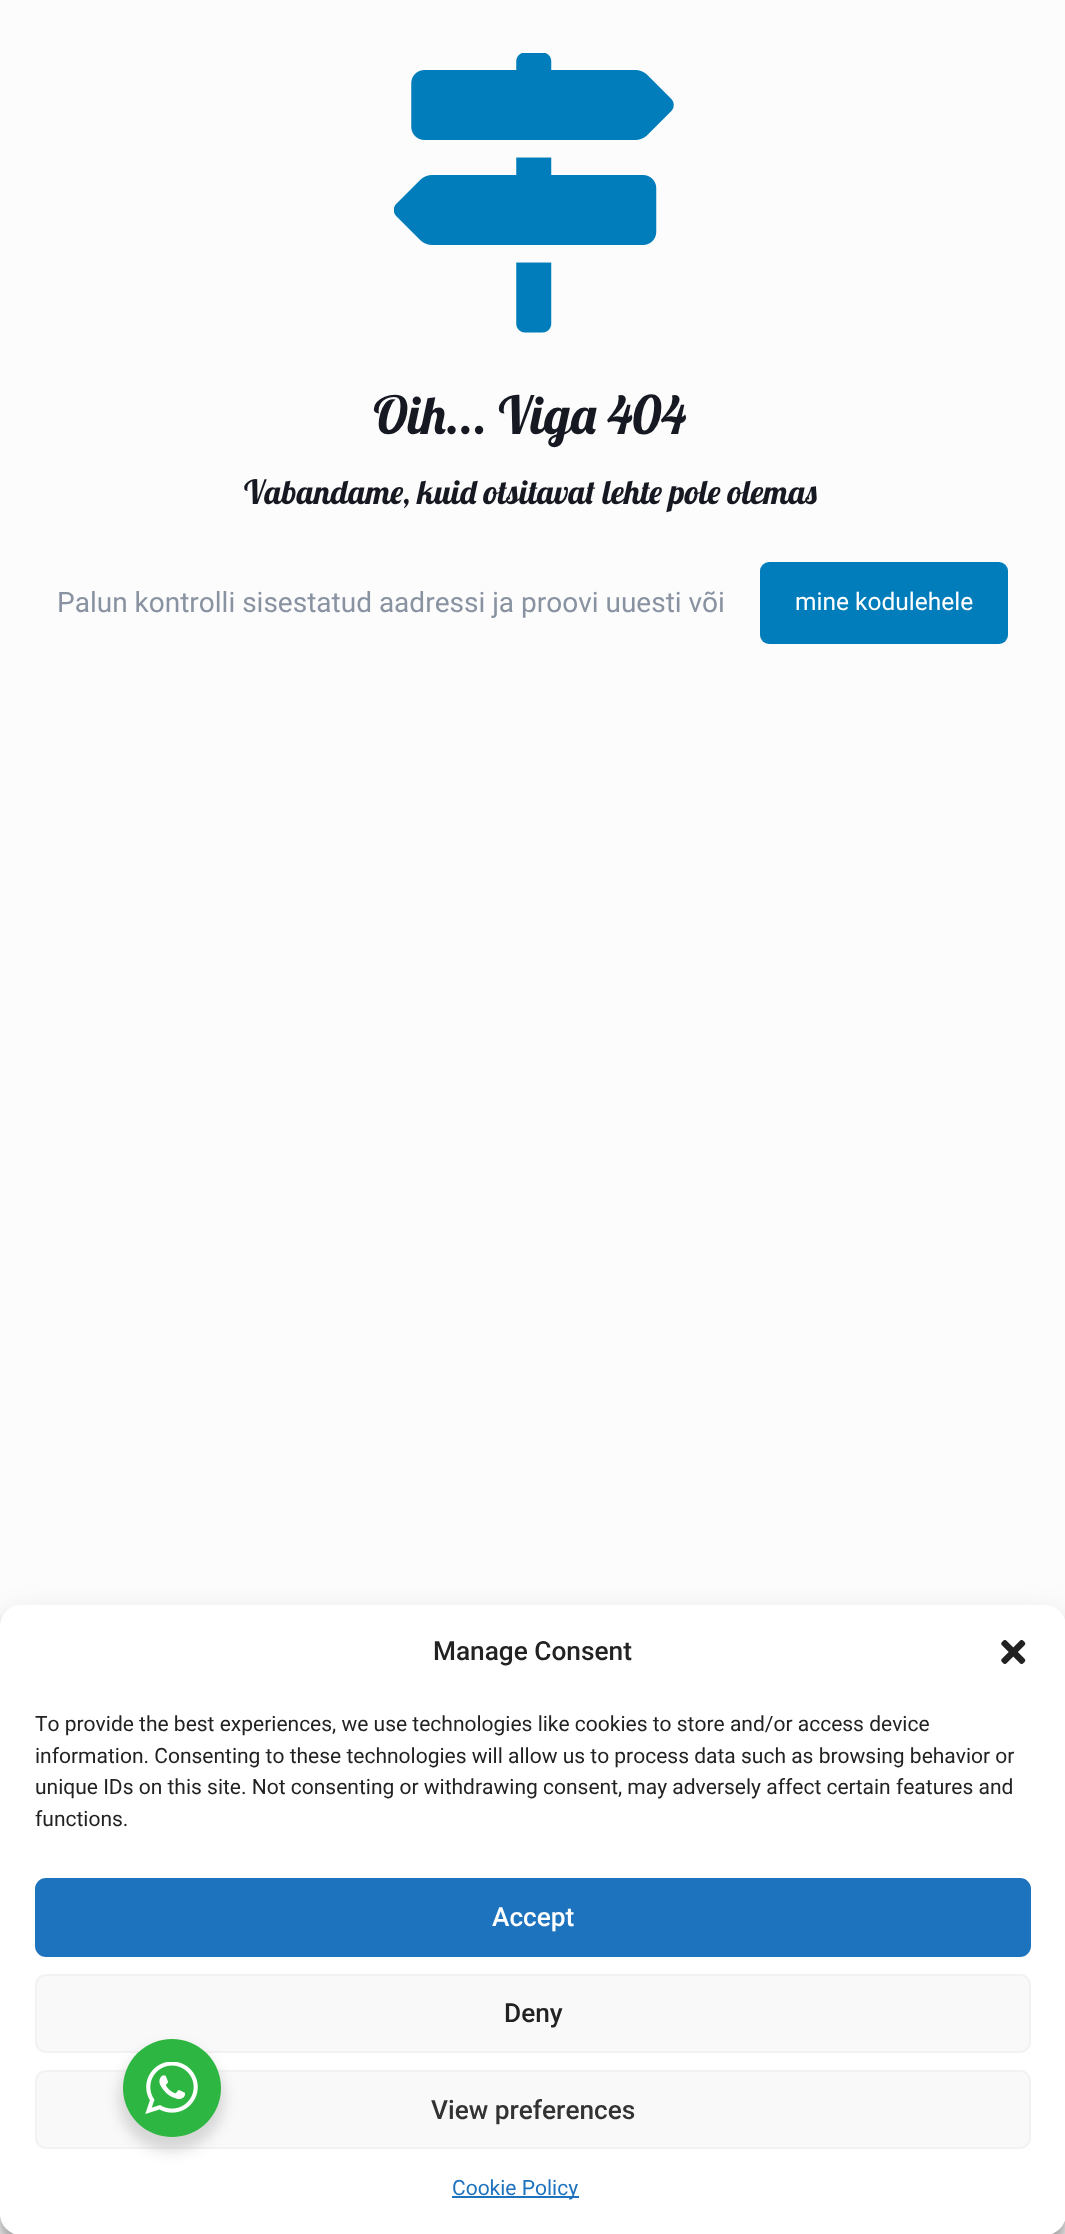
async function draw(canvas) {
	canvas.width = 1065;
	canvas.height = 2234;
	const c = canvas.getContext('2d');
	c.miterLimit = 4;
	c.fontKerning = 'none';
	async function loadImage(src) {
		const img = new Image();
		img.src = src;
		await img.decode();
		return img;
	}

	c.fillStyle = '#fcfcfc';
	c.fillRect(0, 0, 1065, 2234);
	c.drawImage(await loadImage('img1.png'), 394, 53, 280, 280);
	c.font = '52.5px Lobster';
	c.fillStyle = '#161922';
	c.fillText('Oih... Viga 404', 373, 434);
	c.font = '33.25px Lobster';
	c.fillText('Vabandame, kuid otsitavat lehte pole olemas', 244, 504);
	c.font = '28px Roboto';
	c.fillStyle = '#8892a1';
	c.fillText('Palun kontrolli sisestatud aadressi ja proovi uuesti või', 57, 612);
	c.fillStyle = '#007dba';
	c.beginPath();
	c.roundRect(760, 562, 248, 82, 9);
	c.fill();
	c.font = '24.5px Roboto';
	c.fillStyle = '#fff';
	c.fillText('mine kodulehele', 795, 610);
	c.fillStyle = '#0000003b';
	c.filter = 'blur(5px)';
	c.beginPath();
	c.roundRect(0, 1615, 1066, 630, 21);
	c.fill();
	c.filter = 'none';
	c.fillStyle = '#00000030';
	c.filter = 'blur(17.5px)';
	c.beginPath();
	c.roundRect(0, 1622, 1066, 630, 21);
	c.fill();
	c.filter = 'none';
	c.fillStyle = '#fff';
	c.beginPath();
	c.roundRect(0, 1605, 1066, 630, 21);
	c.fill();
	c.font = '500 26.25px Roboto';
	c.fillStyle = '#222';
	c.fillText('Manage Consent', 433, 1660);
	c.drawImage(await loadImage('img2.png'), 1001, 1640, 25, 24);
	c.font = '21px Roboto';
	for (const [text, x, y] of [
		['To provide the best experiences, we use technologies like cookies to store and/or access device', 35, 1731],
		['information. Consenting to these technologies will allow us to process data such as browsing behavior or', 35, 1763],
		['unique IDs on this site. Not consenting or withdrawing consent, may adversely affect certain features and', 35, 1794],
		['functions.', 35, 1826],
	]) {
		c.fillText(text, x, y);
	}
	c.fillStyle = '#1e73be';
	c.beginPath();
	c.roundRect(36, 1879, 994, 77, 10);
	c.fill();
	c.strokeStyle = '#1e73be';
	c.lineWidth = 2;
	c.stroke();
	c.font = '500 26.25px Roboto';
	c.fillStyle = '#fff';
	c.fillText('Accept', 492, 1926);
	c.fillStyle = '#f9f9f9';
	c.beginPath();
	c.roundRect(36, 1975, 994, 77, 10);
	c.fill();
	c.strokeStyle = '#f2f2f2';
	c.stroke();
	c.fillStyle = '#222';
	c.fillText('Deny', 504, 2022);
	c.fillStyle = '#f9f9f9';
	c.beginPath();
	c.roundRect(36, 2071, 994, 77, 10);
	c.fill();
	c.stroke();
	c.fillStyle = '#333';
	c.fillText('View preferences', 431, 2119);
	c.fillStyle = '#1e73be';
	c.fillRect(452, 2196, 127, 2);
	c.font = '21px Roboto';
	c.fillText('Cookie Policy', 452, 2195);
	c.fillStyle = '#00000024';
	c.filter = 'blur(7px)';
	c.beginPath();
	c.roundRect(119, 2046, 105, 105, 52.5);
	c.fill();
	c.filter = 'none';
	c.fillStyle = '#2db742';
	c.beginPath();
	c.arc(172, 2088, 49, 0, 2 * Math.PI);
	c.fill();
	c.drawImage(await loadImage('img3.png'), 145, 2062, 53, 52);
}

draw(document.querySelector('canvas'));
